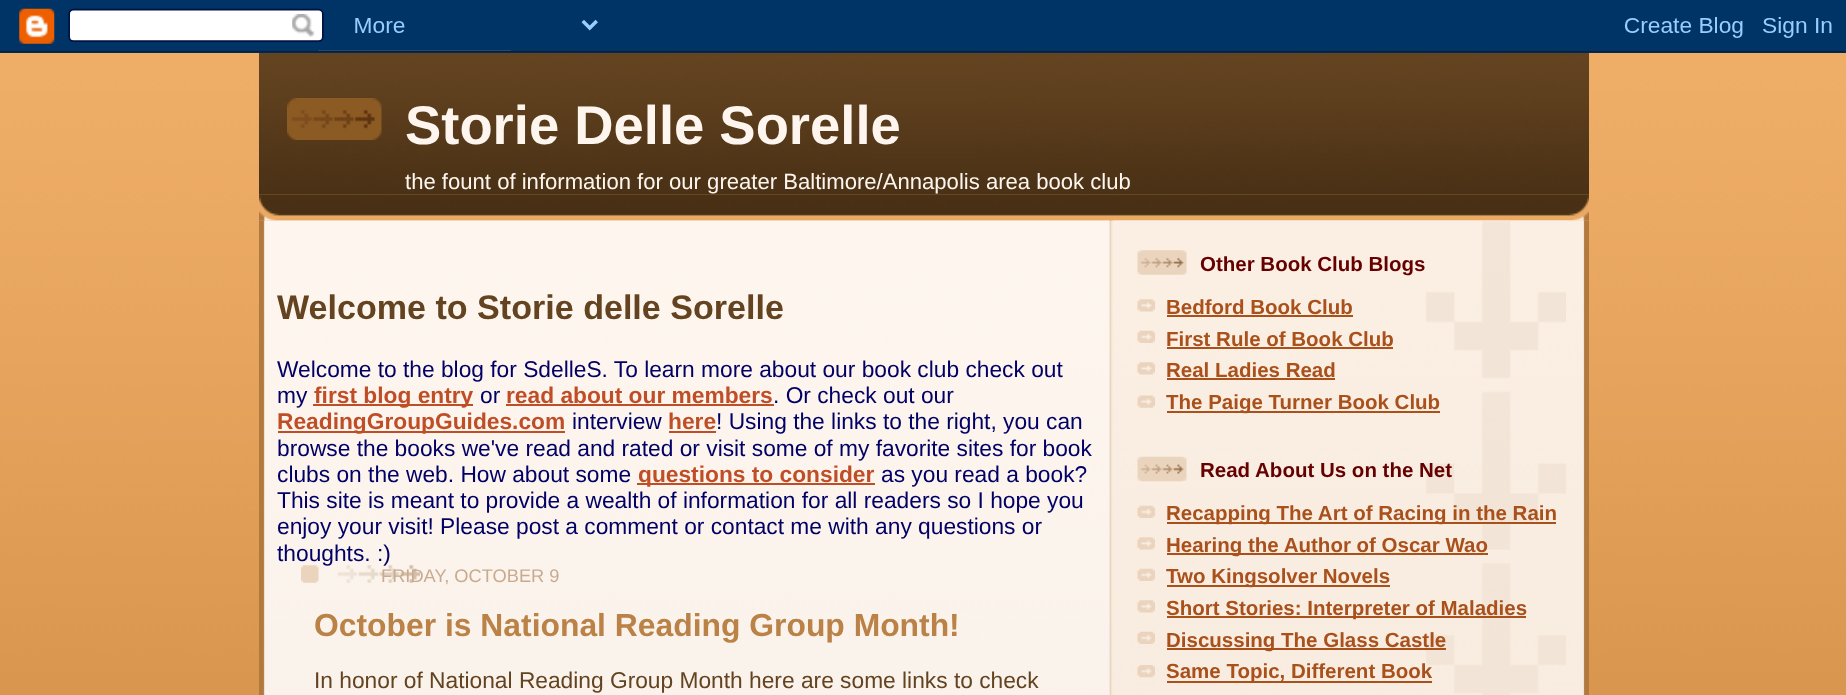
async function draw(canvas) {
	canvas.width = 1846;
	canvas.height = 695;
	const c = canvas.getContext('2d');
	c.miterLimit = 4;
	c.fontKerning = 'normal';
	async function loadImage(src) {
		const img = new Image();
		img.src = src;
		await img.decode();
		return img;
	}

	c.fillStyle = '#fff';
	c.fillRect(0, 0, 1846, 695);
	c.drawImage(await loadImage('img1.png'), 0, 50, 1846, 645);
	c.drawImage(await loadImage('img2.png'), 0, 0, 1846, 53);
	c.drawImage(await loadImage('img3.png'), 259, 194, 1330, 27);
	c.drawImage(await loadImage('img4.png'), 259, 53, 1330, 142);
	c.drawImage(await loadImage('img5.png'), 287, 98, 95, 42);
	c.font = 'bold 54.4px Liberation Sans';
	c.fillStyle = '#fef6ee';
	c.fillText('Storie Delle Sorelle', 405, 144);
	c.font = '22.1px Liberation Sans';
	c.fillText('the fount of information for our greater Baltimore/Annapolis area book club', 405, 189);
	c.drawImage(await loadImage('img6.png'), 259, 220, 1330, 475);
	c.drawImage(await loadImage('img7.png'), 264, 220, 846, 475);
	c.font = 'bold 34.1px Liberation Sans';
	c.fillStyle = '#634320';
	c.fillText('Welcome to Storie delle Sorelle', 277, 319);
	c.font = '22.75px Liberation Sans';
	c.fillStyle = '#006';
	c.fillText('Welcome to the blog for SdelleS. To learn more about our book club check out', 277, 377);
	c.fillText('my', 277, 403);
	c.fillStyle = '#bf4e27';
	c.fillRect(313, 404, 160, 2);
	c.font = 'bold 22.75px Liberation Sans';
	c.fillText('first blog entry', 314, 403);
	c.font = '22.75px Liberation Sans';
	c.fillStyle = '#006';
	c.fillText('or', 480, 403);
	c.font = 'bold 22.75px Liberation Sans';
	c.fillStyle = '#bf4e27';
	c.fillText('read about our members', 506, 403);
	c.fillRect(506, 404, 268, 2);
	c.font = '22.75px Liberation Sans';
	c.fillStyle = '#006';
	c.fillText('. Or check out our', 773, 403);
	c.fillStyle = '#bf4e27';
	c.fillRect(278, 431, 287, 2);
	c.font = 'bold 22.75px Liberation Sans';
	c.fillText('ReadingGroupGuides.com', 277, 429);
	c.font = '22.75px Liberation Sans';
	c.fillStyle = '#006';
	c.fillText('interview', 572, 429);
	c.font = 'bold 22.75px Liberation Sans';
	c.fillStyle = '#bf4e27';
	c.fillText('here', 668, 429);
	c.font = '22.75px Liberation Sans';
	c.fillStyle = '#006';
	c.fillText('! Using the links to the right, you can', 716, 429);
	c.fillStyle = '#bf4e27';
	c.fillRect(669, 431, 47, 2);
	c.fillStyle = '#006';
	c.fillText('browse the books we\'ve read and rated or visit some of my favorite sites for book', 277, 456);
	c.fillText('clubs on the web. How about some', 277, 482);
	c.fillStyle = '#bf4e27';
	c.fillRect(637, 483, 238, 2);
	c.font = 'bold 22.75px Liberation Sans';
	c.fillText('questions to consider', 638, 482);
	c.font = '22.75px Liberation Sans';
	c.fillStyle = '#006';
	for (const [text, x, y] of [
		['as you read a book?', 881, 482],
		['This site is meant to provide a wealth of information for all readers so I hope you', 277, 508],
		['enjoy your visit! Please post a comment or contact me with any questions or', 277, 534],
	]) {
		c.fillText(text, x, y);
	}
	c.drawImage(await loadImage('img8.png'), 301, 565, 18, 18);
	c.fillText('thoughts. :)', 277, 561);
	c.drawImage(await loadImage('img9.png'), 337, 565, 83, 18);
	c.font = '18.25px Liberation Sans';
	c.fillStyle = '#c8ab8f';
	c.fillText('FRIDAY, OCTOBER 9', 381, 582);
	c.font = 'bold 31.85px Liberation Sans';
	c.fillStyle = '#ba8247';
	c.fillText('October is National Reading Group Month!', 314, 636);
	c.font = '22.75px Liberation Sans';
	c.fillStyle = '#634320';
	c.fillText('In honor of National Reading Group Month here are some links to check', 314, 688);
	c.drawImage(await loadImage('img10.png'), 1113, 220, 471, 475);
	c.drawImage(await loadImage('img11.png'), 1426, 221, 140, 474);
	c.drawImage(await loadImage('img12.png'), 1137, 250, 50, 25);
	c.font = 'bold 20.5px Liberation Sans';
	c.fillStyle = '#600';
	c.fillText('Other Book Club Blogs', 1200, 271);
	c.drawImage(await loadImage('img13.png'), 1137, 299, 18, 13);
	c.fillStyle = '#a9501b';
	c.fillText('Bedford Book Club', 1166, 314);
	c.fillRect(1167, 315, 186, 2);
	c.drawImage(await loadImage('img14.png'), 1137, 330, 18, 13);
	c.fillText('First Rule of Book Club', 1166, 346);
	c.fillRect(1167, 347, 226, 2);
	c.drawImage(await loadImage('img15.png'), 1137, 362, 18, 13);
	c.fillText('Real Ladies Read', 1166, 377);
	c.fillRect(1167, 378, 168, 2);
	c.drawImage(await loadImage('img16.png'), 1137, 395, 18, 13);
	c.fillRect(1167, 411, 273, 2);
	c.fillText('The Paige Turner Book Club', 1166, 409);
	c.drawImage(await loadImage('img17.png'), 1137, 456, 50, 26);
	c.fillStyle = '#600';
	c.fillText('Read About Us on the Net', 1200, 477);
	c.drawImage(await loadImage('img18.png'), 1137, 505, 18, 13);
	c.fillStyle = '#a9501b';
	c.fillRect(1167, 522, 389, 2);
	c.fillText('Recapping The Art of Racing in the Rain', 1166, 520);
	c.drawImage(await loadImage('img19.png'), 1137, 537, 18, 13);
	c.fillRect(1167, 553, 321, 2);
	c.fillText('Hearing the Author of Oscar Wao', 1166, 552);
	c.drawImage(await loadImage('img20.png'), 1137, 568, 18, 13);
	c.fillRect(1167, 585, 223, 2);
	c.fillText('Two Kingsolver Novels', 1166, 583);
	c.drawImage(await loadImage('img21.png'), 1137, 600, 18, 13);
	c.fillRect(1167, 616, 359, 2);
	c.fillText('Short Stories: Interpreter of Maladies', 1166, 615);
	c.drawImage(await loadImage('img22.png'), 1137, 631, 18, 13);
	c.fillRect(1167, 648, 279, 2);
	c.fillText('Discussing The Glass Castle', 1166, 647);
	c.drawImage(await loadImage('img23.png'), 1137, 665, 18, 13);
	c.fillRect(1167, 681, 265, 2);
	c.fillText('Same Topic, Different Book', 1166, 678);
}

draw(document.querySelector('canvas'));
